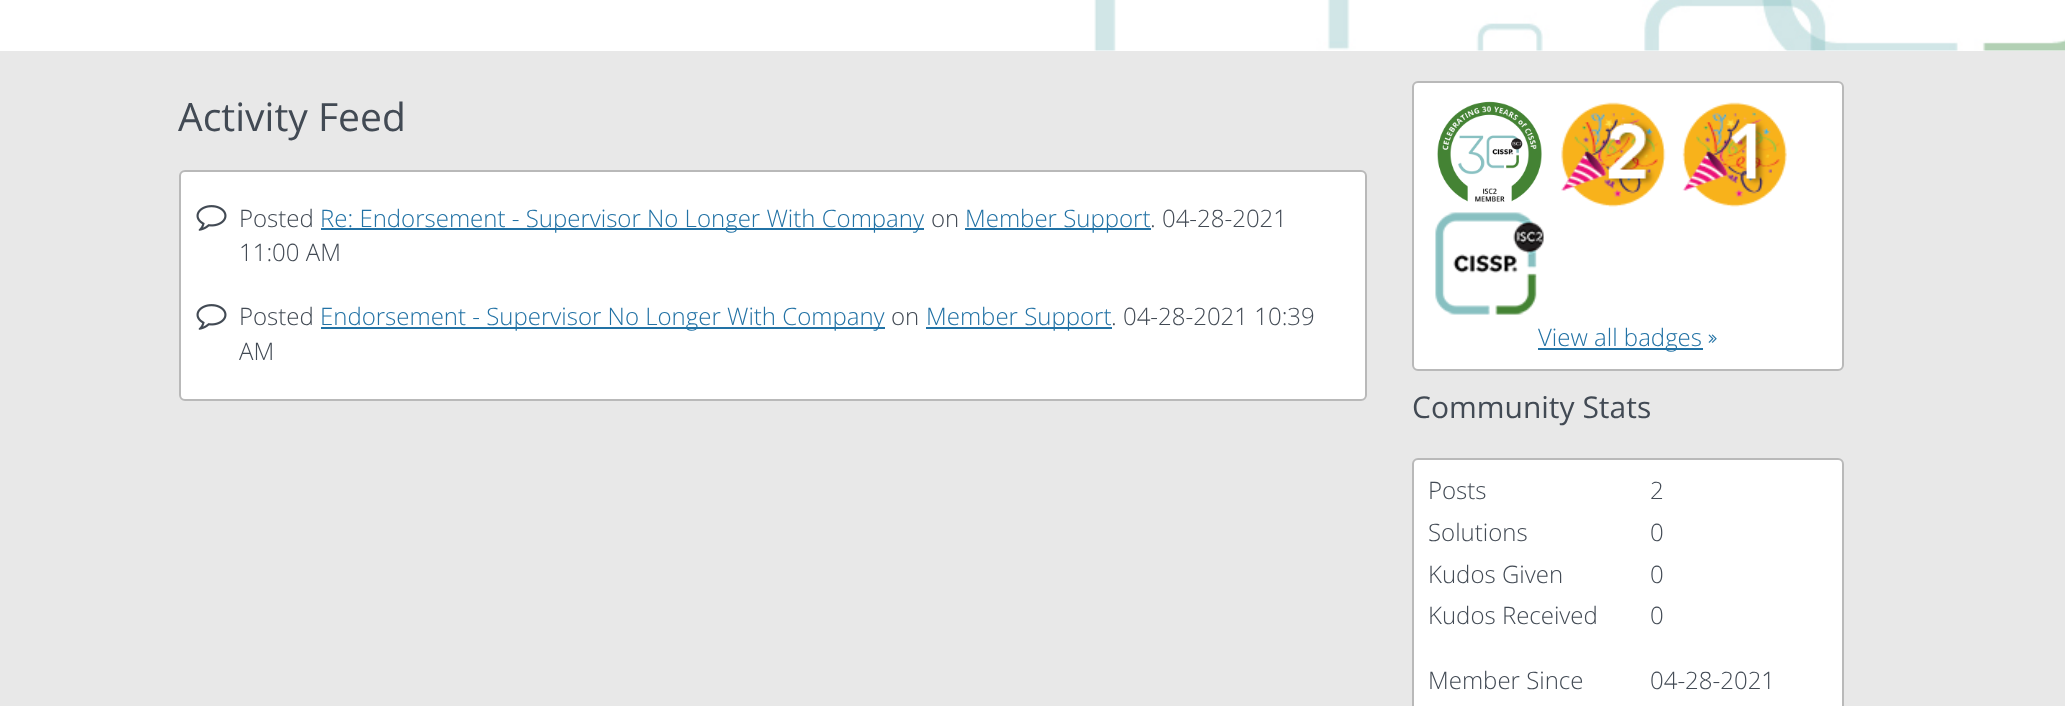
async function draw(canvas) {
	canvas.width = 2065;
	canvas.height = 706;
	const c = canvas.getContext('2d');
	c.miterLimit = 4;
	c.fontKerning = 'normal';
	async function loadImage(src) {
		const img = new Image();
		img.src = src;
		await img.decode();
		return img;
	}

	c.fillStyle = '#e8e8e8';
	c.fillRect(0, 0, 2065, 706);
	c.fillStyle = '#fff';
	c.fillRect(0, 0, 2065, 51);
	c.drawImage(await loadImage('img1.png'), 1094, 0, 971, 51);
	c.font = '39px Open Sans';
	c.fillStyle = '#424a54';
	c.fillText('Activity Feed', 178, 131);
	c.fillStyle = '#fff';
	c.beginPath();
	c.roundRect(180, 171, 1186, 229, 5);
	c.fill();
	c.strokeStyle = '#b9b9b9';
	c.lineWidth = 2;
	c.stroke();
	c.drawImage(await loadImage('img2.png'), 196, 205, 31, 26);
	c.font = '300 24px Open Sans';
	c.fillStyle = '#424a54';
	c.fillText('Posted', 239, 227);
	c.fillStyle = '#2272a5';
	c.fillRect(321, 228, 603, 2);
	c.fillText('Re: Endorsement - Supervisor No Longer With Company', 320, 227);
	c.fillStyle = '#424a54';
	c.fillText('on', 931, 227);
	c.fillStyle = '#2272a5';
	c.fillRect(965, 228, 186, 2);
	c.fillText('Member Support', 965, 227);
	c.fillStyle = '#424a54';
	c.fillText('. 04-28-2021', 1150, 227);
	c.fillText('11:00 AM', 239, 261);
	c.drawImage(await loadImage('img2.png'), 196, 304, 31, 26);
	c.fillText('Posted', 239, 325);
	c.fillStyle = '#2272a5';
	c.fillRect(321, 327, 564, 2);
	c.fillText('Endorsement - Supervisor No Longer With Company', 320, 325);
	c.fillStyle = '#424a54';
	c.fillText('on', 891, 325);
	c.fillStyle = '#2272a5';
	c.fillRect(926, 327, 186, 2);
	c.fillText('Member Support', 926, 325);
	c.fillStyle = '#424a54';
	c.fillText('. 04-28-2021 10:39', 1111, 325);
	c.fillText('AM', 239, 360);
	c.fillStyle = '#fff';
	c.beginPath();
	c.roundRect(1413, 82, 430, 288, 5);
	c.fill();
	c.stroke();
	c.drawImage(await loadImage('img3.png'), 1437, 101, 105, 101);
	c.drawImage(await loadImage('img4.png'), 1561, 102, 105, 105);
	c.drawImage(await loadImage('img5.png'), 1682, 102, 105, 105);
	c.drawImage(await loadImage('img6.png'), 1435, 212, 109, 103);
	c.fillStyle = '#2272a5';
	c.fillRect(1538, 348, 165, 2);
	c.fillText('View all badges', 1538, 346);
	c.drawImage(await loadImage('img7.png'), 1708, 334, 9, 9);
	c.font = '30px Open Sans';
	c.fillStyle = '#424a54';
	c.fillText('Community Stats', 1412, 418);
	c.fillStyle = '#fff';
	c.beginPath();
	c.roundRect(1413, 459, 430, 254, 5);
	c.fill();
	c.stroke();
	c.font = '300 24px Open Sans';
	c.fillStyle = '#424a54';
	for (const [text, x, y] of [
		['Posts', 1428, 499],
		['2', 1650, 499],
		['Solutions', 1428, 541],
		['0', 1650, 541],
		['Kudos Given', 1428, 583],
		['0', 1650, 583],
		['Kudos Received', 1428, 624],
		['0', 1650, 624],
		['Member Since', 1428, 689],
		['04-28-2021', 1650, 689],
	]) {
		c.fillText(text, x, y);
	}
}

draw(document.querySelector('canvas'));
